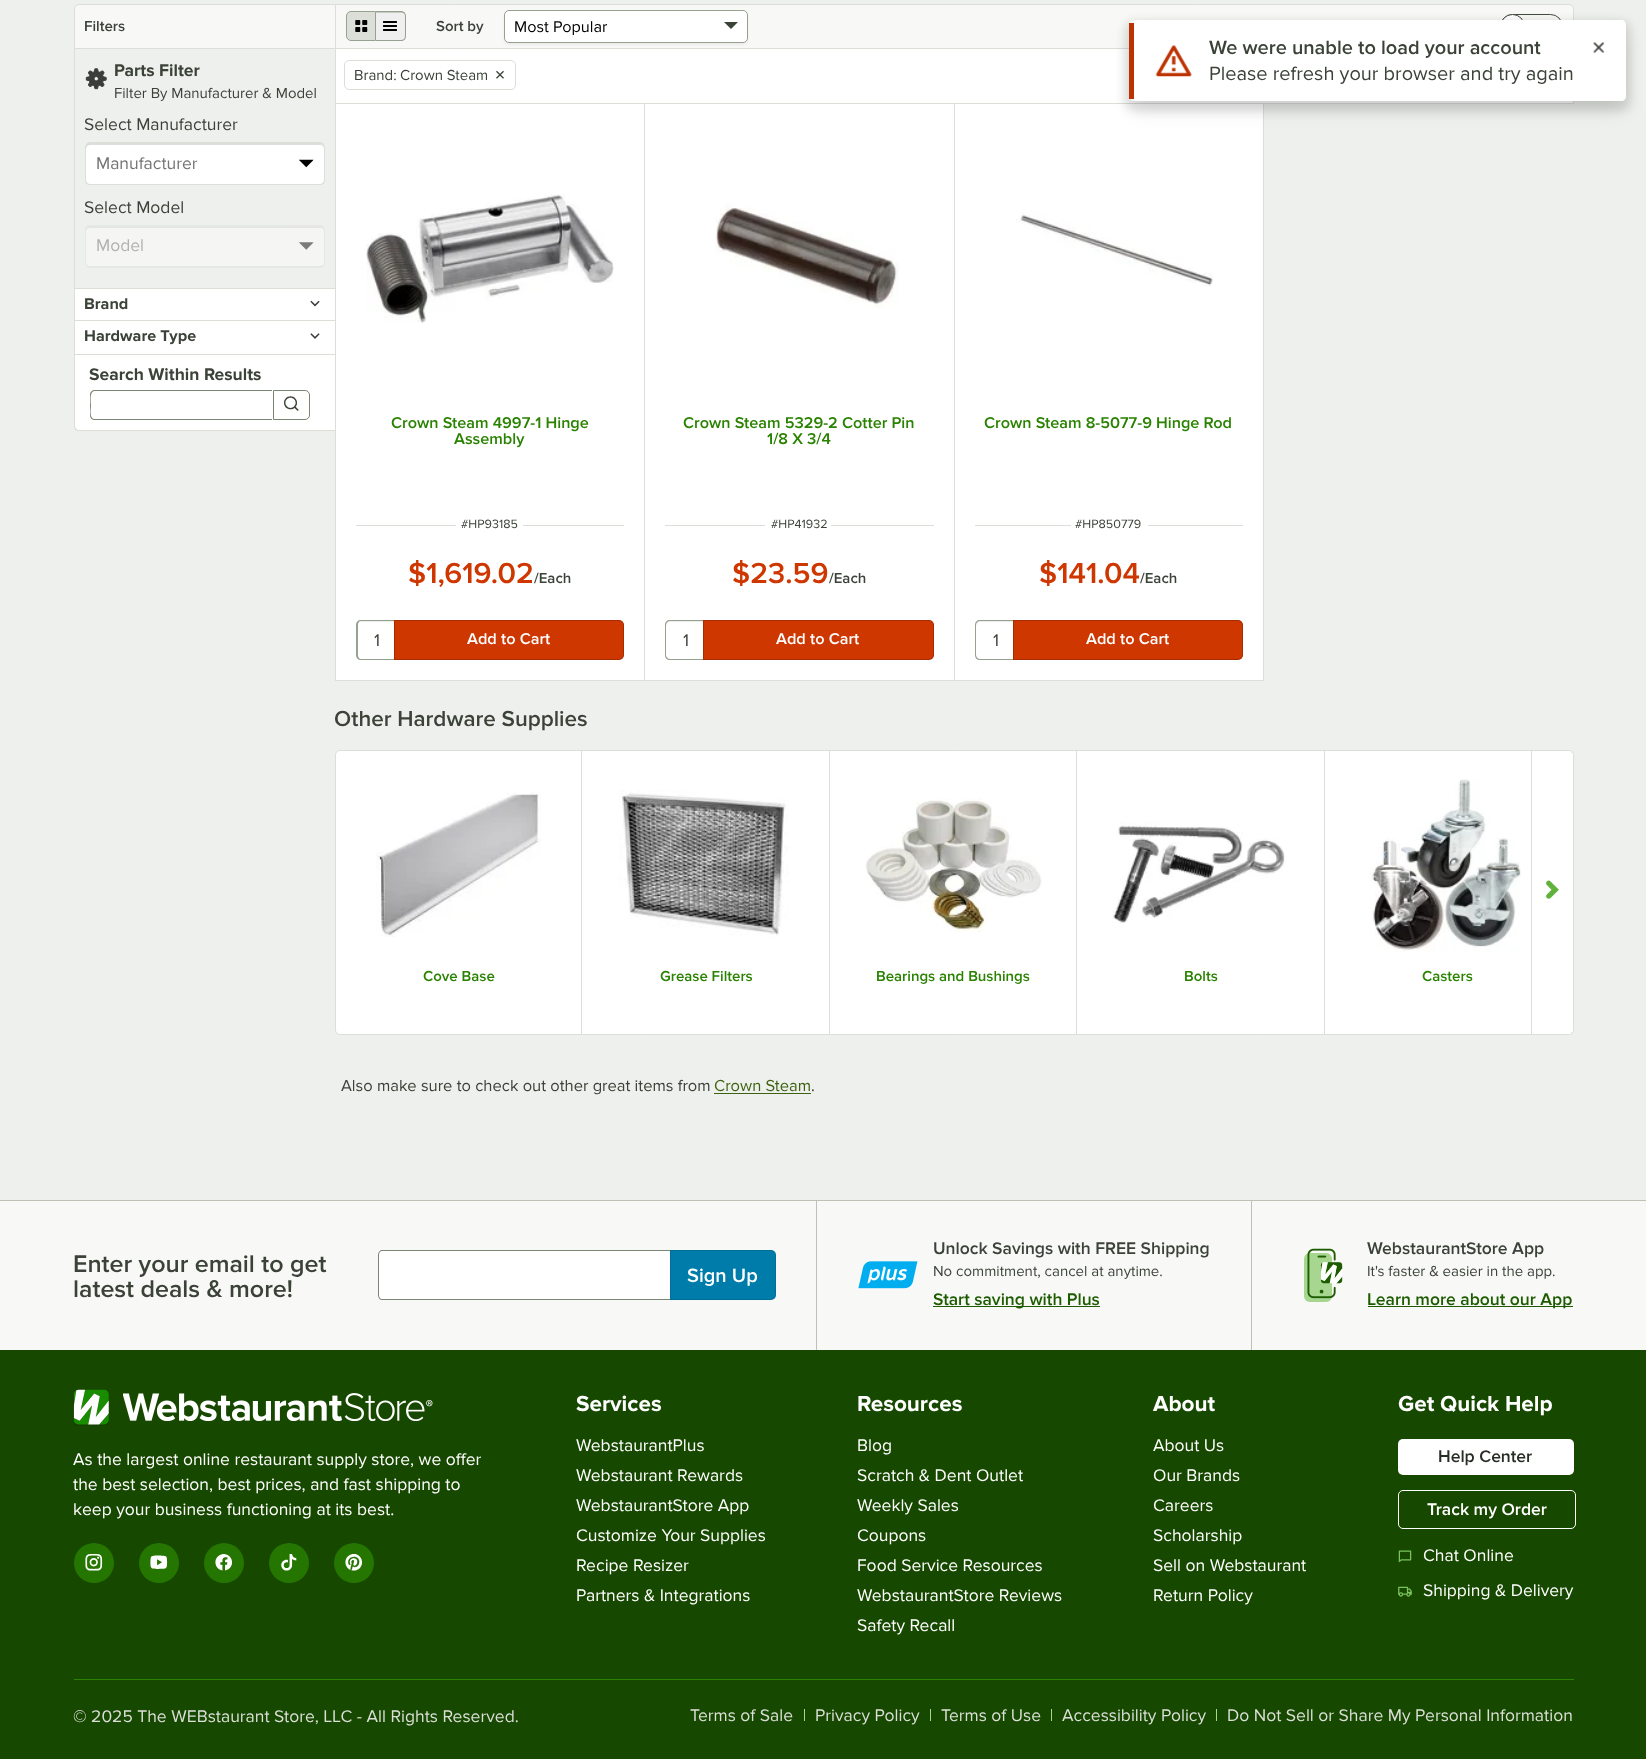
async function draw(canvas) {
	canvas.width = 1646;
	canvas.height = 1759;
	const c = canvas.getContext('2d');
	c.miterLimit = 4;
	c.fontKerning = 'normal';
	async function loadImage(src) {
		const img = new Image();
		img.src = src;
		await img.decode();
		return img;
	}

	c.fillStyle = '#eef0ed';
	c.fillRect(0, 0, 1646, 1759);
	c.fillStyle = '#fff';
	c.beginPath();
	c.roundRect(75, 48, 260, 382, [0, 0, 0, 4]);
	c.fill();
	c.fillStyle = '#dbdfd8';
	c.beginPath();
	c.moveTo(74, 48);
	c.lineTo(335, 48);
	c.lineTo(335, 431);
	c.lineTo(79, 431);
	c.bezierCurveTo(76, 431, 74, 429, 74, 426);
	c.closePath();
	c.moveTo(75, 48);
	c.lineTo(335, 48);
	c.lineTo(335, 430);
	c.lineTo(79, 430);
	c.bezierCurveTo(77, 430, 75, 428, 75, 426);
	c.closePath();
	c.fill('evenodd');
	for (const [x, y, w, h, color] of [
		[1573, 101, 1, 3, '#dbdfd8'],
		[335, 103, 1239, 1, '#dbdfd8'],
		[335, 48, 1, 56, '#dbdfd8'],
	]) {
		c.fillStyle = color;
		c.fillRect(x, y, w, h);
	}
	c.fillStyle = '#f8f8f7';
	c.beginPath();
	c.roundRect(74.5, 4.5, 1499, 44, [4.5, 4.5, 0, 0]);
	c.fill();
	c.strokeStyle = '#dbdfd8';
	c.stroke();
	c.fillStyle = '#dbdfd8';
	c.fillRect(335, 5, 1, 43);
	c.font = '600 15px Proxima Nova';
	c.fillStyle = '#3b4238';
	c.fillText('Filters', 84, 31);
	c.fillStyle = '#dbdfd8';
	c.beginPath();
	c.roundRect(346.5, 11.5, 29, 29, [4.5, 0, 0, 4.5]);
	c.fill();
	c.strokeStyle = '#97a18f';
	c.stroke();
	c.drawImage(await loadImage('img1.png'), 355, 20, 13, 12);
	c.fillStyle = '#efefef';
	c.beginPath();
	c.roundRect(376, 13, 29, 27, [0, 4, 4, 0]);
	c.fill();
	c.fillStyle = '#97a18f';
	c.beginPath();
	c.moveTo(376, 11);
	c.lineTo(401, 11);
	c.bezierCurveTo(404, 11, 406, 13.5, 406, 16);
	c.lineTo(406, 36);
	c.bezierCurveTo(406, 39, 404, 41, 401, 41);
	c.lineTo(376, 41);
	c.closePath();
	c.moveTo(376, 12.5);
	c.lineTo(401, 12.5);
	c.bezierCurveTo(403.5, 12.5, 405, 14, 405, 16);
	c.lineTo(405, 36);
	c.bezierCurveTo(405, 38.5, 403.5, 40, 401, 40);
	c.lineTo(376, 40);
	c.closePath();
	c.fill('evenodd');
	c.drawImage(await loadImage('img2.png'), 383, 21, 14, 10);
	c.fillStyle = '#3b4238';
	c.fillText('Sort by', 436, 31);
	c.fillStyle = '#0000000d';
	c.filter = 'blur(1px)';
	c.beginPath();
	c.roundRect(504, 13, 244, 32, 5);
	c.fill();
	c.filter = 'none';
	c.fillStyle = '#fff';
	c.beginPath();
	c.roundRect(504.5, 10.5, 243, 32, 4.5);
	c.fill();
	c.stroke();
	c.font = '16.25px Proxima Nova';
	c.fillStyle = '#000';
	c.fillText('Most Popular', 514, 32);
	c.fillStyle = '#3b4238';
	c.beginPath();
	c.moveTo(731, 29);
	c.lineTo(724, 22);
	c.lineTo(738, 22);
	c.closePath();
	c.fill();
	c.beginPath();
	c.roundRect(1500.5, 14.5, 62, 24, 12);
	c.strokeStyle = '#454c40';
	c.stroke();
	c.fillStyle = '#fff';
	c.beginPath();
	c.arc(1512.5, 26.5, 12, 0, 2 * Math.PI);
	c.fill();
	c.stroke();
	c.fillStyle = '#eef0ed';
	c.fillRect(75, 49, 260, 239);
	c.fillStyle = '#dbdfd8';
	c.fillRect(75, 288, 260, 1);
	c.drawImage(await loadImage('img3.png'), 85, 68, 22, 22);
	c.font = 'bold 17.5px Proxima Nova';
	c.fillStyle = '#3b4238';
	c.fillText('Parts Filter', 114, 76);
	c.font = '15px Proxima Nova';
	c.fillText('Filter By Manufacturer & Model', 114, 98);
	c.font = '17.5px Proxima Nova';
	c.fillText('Select Manufacturer', 84, 130);
	c.fillStyle = '#fff';
	c.beginPath();
	c.roundRect(86, 144, 203, 40, [4, 0, 0, 4]);
	c.fill();
	c.fillStyle = '#00000021';
	c.beginPath();
	c.moveTo(90, 145);
	c.lineTo(289, 145);
	c.lineTo(289, 144);
	c.lineTo(88, 144);
	c.bezierCurveTo(86, 145, 86, 147, 86, 149);
	c.bezierCurveTo(86, 147, 88, 145, 90, 145);
	c.closePath();
	c.fill();
	c.fillStyle = '#dbdfd8';
	c.beginPath();
	c.moveTo(90, 142);
	c.lineTo(289, 142);
	c.lineTo(289, 185);
	c.lineTo(90, 185);
	c.bezierCurveTo(87, 185, 85, 183, 85, 180);
	c.lineTo(85, 148);
	c.bezierCurveTo(85, 145, 87, 142, 90, 142);
	c.closePath();
	c.moveTo(90, 144);
	c.lineTo(289, 144);
	c.lineTo(289, 184);
	c.lineTo(90, 184);
	c.bezierCurveTo(88, 184, 86, 182, 86, 180);
	c.lineTo(86, 148);
	c.bezierCurveTo(86, 145, 88, 144, 90, 144);
	c.closePath();
	c.fill('evenodd');
	c.fillStyle = '#757575';
	c.fillText('Manufacturer', 96, 169);
	c.fillStyle = '#fff';
	c.beginPath();
	c.roundRect(289, 144, 35, 40, [0, 4, 4, 0]);
	c.fill();
	c.fillStyle = '#00000021';
	c.beginPath();
	c.moveTo(289, 145);
	c.lineTo(320, 145);
	c.bezierCurveTo(322, 145, 324, 147, 324, 149);
	c.lineTo(324, 148);
	c.bezierCurveTo(324, 146, 322, 144, 320, 144);
	c.lineTo(289, 144);
	c.closePath();
	c.fill();
	c.fillStyle = '#dbdfd8';
	c.beginPath();
	c.moveTo(289, 142);
	c.lineTo(320, 142);
	c.bezierCurveTo(323, 142, 325, 145, 325, 148);
	c.lineTo(325, 180);
	c.bezierCurveTo(325, 183, 323, 185, 320, 185);
	c.lineTo(289, 185);
	c.closePath();
	c.moveTo(289, 144);
	c.lineTo(320, 144);
	c.bezierCurveTo(322, 144, 324, 145, 324, 148);
	c.lineTo(324, 180);
	c.bezierCurveTo(324, 182, 322, 184, 320, 184);
	c.lineTo(289, 184);
	c.closePath();
	c.fill('evenodd');
	c.drawImage(await loadImage('img4.png'), 299, 159, 15, 9);
	c.fillStyle = '#3b4238';
	c.fillText('Select Model', 84, 213);
	c.fillStyle = '#f5f6f4';
	c.beginPath();
	c.roundRect(86, 226, 203, 40, [4, 0, 0, 4]);
	c.fill();
	c.fillStyle = '#77787721';
	c.beginPath();
	c.moveTo(90, 228);
	c.lineTo(289, 228);
	c.lineTo(289, 226);
	c.lineTo(88, 226);
	c.bezierCurveTo(86, 227, 86, 229, 86, 231);
	c.bezierCurveTo(86, 229, 88, 228, 90, 228);
	c.closePath();
	c.fill();
	c.fillStyle = '#e5e8e3';
	c.beginPath();
	c.moveTo(90, 225);
	c.lineTo(289, 225);
	c.lineTo(289, 268);
	c.lineTo(90, 268);
	c.bezierCurveTo(87, 268, 85, 265, 85, 262);
	c.lineTo(85, 230);
	c.bezierCurveTo(85, 227, 87, 225, 90, 225);
	c.closePath();
	c.moveTo(90, 226);
	c.lineTo(289, 226);
	c.lineTo(289, 266);
	c.lineTo(90, 266);
	c.bezierCurveTo(88, 266, 86, 265, 86, 262);
	c.lineTo(86, 230);
	c.bezierCurveTo(86, 228, 88, 226, 90, 226);
	c.closePath();
	c.fill('evenodd');
	c.fillStyle = '#b2b3b1';
	c.fillText('Model', 96, 251);
	c.fillStyle = '#f5f6f4';
	c.beginPath();
	c.roundRect(289, 226, 35, 40, [0, 4, 4, 0]);
	c.fill();
	c.fillStyle = '#e5e6e4';
	c.beginPath();
	c.moveTo(289, 228);
	c.lineTo(320, 228);
	c.bezierCurveTo(322, 228, 324, 229, 324, 231);
	c.lineTo(324, 230);
	c.bezierCurveTo(324, 228, 322, 226, 320, 226);
	c.lineTo(289, 226);
	c.closePath();
	c.fill();
	c.fillStyle = '#e5e8e3';
	c.beginPath();
	c.moveTo(289, 225);
	c.lineTo(320, 225);
	c.bezierCurveTo(323, 225, 325, 227, 325, 230);
	c.lineTo(325, 262);
	c.bezierCurveTo(325, 265, 323, 268, 320, 268);
	c.lineTo(289, 268);
	c.closePath();
	c.moveTo(289, 226);
	c.lineTo(320, 226);
	c.bezierCurveTo(322, 226, 324, 228, 324, 230);
	c.lineTo(324, 262);
	c.bezierCurveTo(324, 265, 322, 266, 320, 266);
	c.lineTo(289, 266);
	c.closePath();
	c.fill('evenodd');
	c.drawImage(await loadImage('img5.png'), 299, 242, 15, 8);
	c.font = 'bold 16.25px Proxima Nova';
	c.fillStyle = '#3b4238';
	c.fillText('Brand', 84, 309);
	c.drawImage(await loadImage('img6.png'), 310, 300, 10, 7);
	c.fillStyle = '#dbdfd8';
	c.fillRect(75, 320, 260, 1);
	c.fillStyle = '#3b4238';
	c.fillText('Hardware Type', 84, 341);
	c.drawImage(await loadImage('img7.png'), 310, 333, 10, 6);
	c.fillStyle = '#dbdfd8';
	c.fillRect(75, 354, 260, 1);
	c.font = 'bold 17.5px Proxima Nova';
	c.fillStyle = '#3b4238';
	c.fillText('Search Within Results', 89, 380);
	c.fillStyle = '#7a8671';
	c.beginPath();
	c.moveTo(95, 390);
	c.lineTo(272, 390);
	c.lineTo(272, 420);
	c.lineTo(95, 420);
	c.bezierCurveTo(92, 420, 90, 418, 90, 415);
	c.lineTo(90, 395);
	c.bezierCurveTo(90, 392, 92, 390, 95, 390);
	c.closePath();
	c.moveTo(95, 391);
	c.lineTo(272, 391);
	c.lineTo(272, 419);
	c.lineTo(94, 419);
	c.bezierCurveTo(89, 418, 91, 408, 91, 405);
	c.bezierCurveTo(91, 402, 89, 391, 95, 391);
	c.closePath();
	c.fill('evenodd');
	c.beginPath();
	c.roundRect(273.5, 390.5, 36, 29, [0, 4.5, 4.5, 0]);
	c.strokeStyle = '#7a8671';
	c.stroke();
	c.drawImage(await loadImage('img8.png'), 284, 396, 15, 15);
	c.fillStyle = '#fff';
	c.fillRect(336, 49, 1237, 54);
	c.beginPath();
	c.roundRect(344.5, 60.5, 171, 29, 4.5);
	c.strokeStyle = '#dbdfd8';
	c.stroke();
	c.font = '15px Proxima Nova';
	c.fillStyle = '#3b4238';
	c.fillText('Brand:', 354, 80);
	c.fillText('Crown Steam', 400, 80);
	c.drawImage(await loadImage('img9.png'), 496, 70, 8, 9);
	for (const [x, y, w, h, color] of [
		[335, 104, 1, 577, '#dbdfd8'],
		[336, 104, 308, 576, '#fff'],
		[644, 104, 1, 577, '#dbdfd8'],
		[336, 680, 309, 1, '#dbdfd8'],
	]) {
		c.fillStyle = color;
		c.fillRect(x, y, w, h);
	}
	c.drawImage(await loadImage('img10.png'), 366, 193, 248, 130);
	c.font = '600 16.25px Proxima Nova';
	c.fillStyle = '#298200';
	c.fillText('Crown Steam 4997-1 Hinge', 391, 428);
	c.fillText('Assembly', 454, 444);
	c.fillStyle = '#dbdfd8';
	c.fillRect(356, 525, 268, 1);
	c.fillStyle = '#fff';
	c.fillRect(456, 525, 67, 1);
	c.font = '12.5px Proxima Nova';
	c.fillStyle = '#3b4238';
	c.fillText('#HP93185', 461, 528);
	c.font = '600 30px Proxima Nova';
	c.fillStyle = '#cf3700';
	c.fillText('$1,619.02', 408, 583);
	c.font = '600 15px Proxima Nova';
	c.fillStyle = '#3b4238';
	c.fillText('/Each', 534, 583);
	c.fillStyle = '#ececec';
	c.beginPath();
	c.moveTo(361, 622);
	c.lineTo(398, 622);
	c.lineTo(398, 621);
	c.lineTo(362, 621);
	c.bezierCurveTo(360, 621, 358, 623, 358, 625);
	c.lineTo(358, 626);
	c.bezierCurveTo(358, 624, 359, 622, 361, 622);
	c.closePath();
	c.fill();
	c.fillStyle = '#97a18f';
	c.beginPath();
	c.moveTo(361, 620);
	c.lineTo(398, 620);
	c.lineTo(398, 660);
	c.lineTo(361, 660);
	c.bezierCurveTo(358, 660, 356, 658, 356, 655);
	c.lineTo(356, 625);
	c.bezierCurveTo(356, 622, 358, 620, 361, 620);
	c.closePath();
	c.moveTo(361, 621);
	c.lineTo(398, 621);
	c.lineTo(398, 659);
	c.lineTo(361, 659);
	c.bezierCurveTo(359, 659, 358, 657, 358, 655);
	c.lineTo(358, 625);
	c.bezierCurveTo(358, 623, 359, 621, 361, 621);
	c.closePath();
	c.fill('evenodd');
	c.font = '17.5px Proxima Nova';
	c.fillStyle = '#3b4238';
	c.fillText('1', 374, 646);
	c.fillStyle = '#cf3700';
	c.beginPath();
	c.roundRect(394, 620, 230, 40, [0, 5, 5, 0]);
	c.fill();
	c.beginPath();
	c.roundRect(394.5, 620.5, 229, 39, [0, 4.5, 4.5, 0]);
	c.strokeStyle = '#00000033';
	c.stroke();
	c.font = '600 16.25px Proxima Nova';
	c.fillStyle = '#fff';
	c.fillText('Add to Cart', 467, 644);
	for (const [x, y, w, h, color] of [
		[645, 104, 309, 576, '#fff'],
		[954, 104, 1, 577, '#dbdfd8'],
		[645, 680, 310, 1, '#dbdfd8'],
	]) {
		c.fillStyle = color;
		c.fillRect(x, y, w, h);
	}
	c.drawImage(await loadImage('img11.png'), 715, 203, 184, 105);
	c.fillStyle = '#298200';
	c.fillText('Crown Steam 5329-2 Cotter Pin', 683, 428);
	c.fillText('1/8 X 3/4', 767, 444);
	c.fillStyle = '#dbdfd8';
	c.fillRect(665, 525, 269, 1);
	c.fillStyle = '#fff';
	c.fillRect(765, 525, 66, 1);
	c.font = '12.5px Proxima Nova';
	c.fillStyle = '#3b4238';
	c.fillText('#HP41932', 771, 528);
	c.font = '600 30px Proxima Nova';
	c.fillStyle = '#cf3700';
	c.fillText('$23.59', 732, 583);
	c.font = '600 15px Proxima Nova';
	c.fillStyle = '#3b4238';
	c.fillText('/Each', 829, 583);
	c.fillStyle = '#ececec';
	c.beginPath();
	c.moveTo(670, 622);
	c.lineTo(706, 622);
	c.lineTo(706, 621);
	c.lineTo(670, 621);
	c.bezierCurveTo(668, 621, 666, 623, 666, 625);
	c.lineTo(666, 626);
	c.bezierCurveTo(666, 624, 668, 622, 670, 622);
	c.closePath();
	c.fill();
	c.fillStyle = '#97a18f';
	c.beginPath();
	c.moveTo(670, 620);
	c.lineTo(706, 620);
	c.lineTo(706, 660);
	c.lineTo(670, 660);
	c.bezierCurveTo(667, 660, 665, 658, 665, 655);
	c.lineTo(665, 625);
	c.bezierCurveTo(665, 622, 667, 620, 670, 620);
	c.closePath();
	c.moveTo(670, 621);
	c.lineTo(706, 621);
	c.lineTo(706, 659);
	c.lineTo(670, 659);
	c.bezierCurveTo(668, 659, 666, 657, 666, 655);
	c.lineTo(666, 625);
	c.bezierCurveTo(666, 623, 668, 621, 670, 621);
	c.closePath();
	c.fill('evenodd');
	c.font = '17.5px Proxima Nova';
	c.fillStyle = '#3b4238';
	c.fillText('1', 683, 646);
	c.fillStyle = '#cf3700';
	c.beginPath();
	c.roundRect(703, 620, 231, 40, [0, 5, 5, 0]);
	c.fill();
	c.beginPath();
	c.roundRect(703.5, 620.5, 230, 39, [0, 4.5, 4.5, 0]);
	c.stroke();
	c.font = '600 16.25px Proxima Nova';
	c.fillStyle = '#fff';
	c.fillText('Add to Cart', 776, 644);
	for (const [x, y, w, h, color] of [
		[955, 104, 308, 576, '#fff'],
		[1263, 104, 1, 577, '#dbdfd8'],
		[955, 680, 309, 1, '#dbdfd8'],
	]) {
		c.fillStyle = color;
		c.fillRect(x, y, w, h);
	}
	c.drawImage(await loadImage('img12.png'), 1016, 213, 197, 74);
	c.fillStyle = '#298200';
	c.fillText('Crown Steam 8-5077-9 Hinge Rod', 984, 428);
	c.fillStyle = '#dbdfd8';
	c.fillRect(975, 525, 268, 1);
	c.fillStyle = '#fff';
	c.fillRect(1071, 525, 77, 1);
	c.font = '12.5px Proxima Nova';
	c.fillStyle = '#3b4238';
	c.fillText('#HP850779', 1075, 528);
	c.font = '600 30px Proxima Nova';
	c.fillStyle = '#cf3700';
	c.fillText('$141.04', 1039, 583);
	c.font = '600 15px Proxima Nova';
	c.fillStyle = '#3b4238';
	c.fillText('/Each', 1140, 583);
	c.fillStyle = '#ececec';
	c.beginPath();
	c.moveTo(980, 622);
	c.lineTo(1016, 622);
	c.lineTo(1016, 621);
	c.lineTo(980, 621);
	c.bezierCurveTo(978, 621, 976, 623, 976, 625);
	c.lineTo(976, 626);
	c.bezierCurveTo(976, 624, 978, 622, 980, 622);
	c.closePath();
	c.fill();
	c.fillStyle = '#97a18f';
	c.beginPath();
	c.moveTo(980, 620);
	c.lineTo(1016, 620);
	c.lineTo(1016, 660);
	c.lineTo(980, 660);
	c.bezierCurveTo(977, 660, 975, 658, 975, 655);
	c.lineTo(975, 625);
	c.bezierCurveTo(975, 622, 977, 620, 980, 620);
	c.closePath();
	c.moveTo(980, 621);
	c.lineTo(1016, 621);
	c.lineTo(1016, 659);
	c.lineTo(980, 659);
	c.bezierCurveTo(978, 659, 976, 657, 976, 655);
	c.lineTo(976, 625);
	c.bezierCurveTo(976, 623, 978, 621, 980, 621);
	c.closePath();
	c.fill('evenodd');
	c.font = '17.5px Proxima Nova';
	c.fillStyle = '#3b4238';
	c.fillText('1', 993, 646);
	c.fillStyle = '#cf3700';
	c.beginPath();
	c.roundRect(1013, 620, 230, 40, [0, 5, 5, 0]);
	c.fill();
	c.beginPath();
	c.roundRect(1013.5, 620.5, 229, 39, [0, 4.5, 4.5, 0]);
	c.stroke();
	c.font = '600 16.25px Proxima Nova';
	c.fillStyle = '#fff';
	c.fillText('Add to Cart', 1086, 644);
	c.font = '600 22.5px Proxima Nova';
	c.fillStyle = '#3b4238';
	c.fillText('Other Hardware Supplies', 334, 726);
	c.fillStyle = '#fff';
	c.beginPath();
	c.roundRect(335.5, 750.5, 1238, 284, 4.5);
	c.fill();
	c.strokeStyle = '#dbdfd8';
	c.stroke();
	c.fillStyle = '#dbdfd8';
	c.fillRect(581, 751, 1, 283);
	c.drawImage(await loadImage('img13.png'), 376, 792, 165, 145);
	c.font = '600 15px Proxima Nova';
	c.fillStyle = '#298200';
	c.fillText('Cove Base', 423, 981);
	c.fillStyle = '#dbdfd8';
	c.fillRect(829, 751, 1, 283);
	c.drawImage(await loadImage('img14.png'), 619, 790, 170, 147);
	c.fillStyle = '#298200';
	c.fillText('Grease Filters', 660, 981);
	c.fillStyle = '#dbdfd8';
	c.fillRect(1076, 751, 1, 283);
	c.drawImage(await loadImage('img15.png'), 866, 798, 176, 135);
	c.fillStyle = '#298200';
	c.fillText('Bearings and Bushings', 876, 981);
	c.fillStyle = '#dbdfd8';
	c.fillRect(1324, 751, 1, 283);
	c.drawImage(await loadImage('img16.png'), 1112, 822, 174, 101);
	c.fillStyle = '#298200';
	c.fillText('Bolts', 1184, 981);
	c.save();
	c.beginPath();
	c.roundRect(336, 751, 1237, 283, 4);
	c.clip();
	c.fillStyle = '#dbdfd8';
	c.fillRect(1571, 751, 1, 283);
	c.restore();
	c.drawImage(await loadImage('img17.png'), 1370, 779, 151, 173);
	c.fillText('Casters', 1422, 981);
	c.save();
	c.beginPath();
	c.roundRect(336, 751, 1237, 283, 4);
	c.clip();
	c.fillStyle = '#fff';
	c.beginPath();
	c.roundRect(1533, 751, 40, 283, [0, 5, 5, 0]);
	c.fill();
	c.restore();
	c.fillStyle = '#dbdfd8';
	c.fillRect(1531, 751, 1, 283);
	c.drawImage(await loadImage('img18.png'), 1546, 880, 13, 19);
	c.font = '16.5px Proxima Nova';
	c.fillStyle = '#3b4238';
	c.fillText('Also make sure to check out other great items from', 341, 1091);
	c.fillStyle = '#3f6212';
	c.fillText('Crown Steam', 714, 1091);
	c.fillRect(714, 1093, 97, 1);
	c.fillStyle = '#3b4238';
	c.fillText('.', 811, 1091);
	c.fillStyle = '#0000001a';
	c.filter = 'blur(9.5px)';
	c.beginPath();
	c.roundRect(1133, 36, 490, 74, 1);
	c.fill();
	c.filter = 'none';
	c.save();
	c.beginPath();
	c.moveTo(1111, 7);
	c.lineTo(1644, 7);
	c.lineTo(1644, 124);
	c.lineTo(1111, 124);
	c.closePath();
	c.moveTo(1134, 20);
	c.lineTo(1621, 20);
	c.bezierCurveTo(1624, 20, 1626, 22, 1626, 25);
	c.lineTo(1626, 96);
	c.bezierCurveTo(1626, 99, 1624, 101, 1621, 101);
	c.lineTo(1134, 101);
	c.bezierCurveTo(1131, 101, 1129, 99, 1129, 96);
	c.lineTo(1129, 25);
	c.bezierCurveTo(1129, 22, 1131, 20, 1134, 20);
	c.closePath();
	c.clip('evenodd');
	c.filter = 'blur(4px)';
	c.beginPath();
	c.roundRect(1124, 20, 507, 91, 10);
	c.fill();
	c.filter = 'none';
	c.restore();
	c.fillStyle = '#fff';
	c.beginPath();
	c.moveTo(1134, 20);
	c.lineTo(1621, 20);
	c.bezierCurveTo(1624, 20, 1626, 22, 1626, 25);
	c.lineTo(1626, 96);
	c.bezierCurveTo(1626, 99, 1624, 101, 1621, 101);
	c.lineTo(1134, 101);
	c.closePath();
	c.fill();
	c.fillStyle = '#bc3200';
	c.fillRect(1129, 23, 5, 76);
	c.drawImage(await loadImage('img19.png'), 1155, 45, 37, 32);
	c.font = '600 20px Proxima Nova';
	c.fillStyle = '#3b4238';
	c.fillText('We were unable to load your account', 1209, 54);
	c.font = '20px Proxima Nova';
	c.fillText('Please refresh your browser and try again', 1209, 80);
	c.drawImage(await loadImage('img20.png'), 1593, 42, 12, 12);
	for (const [x, y, w, h, color] of [
		[0, 1201, 1646, 149, '#f8f8f7'],
		[0, 1200, 1646, 1, '#bcc3b6'],
		[816, 1201, 1, 149, '#bcc3b6'],
	]) {
		c.fillStyle = color;
		c.fillRect(x, y, w, h);
	}
	c.font = '600 25px Proxima Nova';
	c.fillStyle = '#3b4238';
	c.fillText('Enter your email to get', 73, 1272);
	c.fillText('latest deals & more!', 73, 1297);
	c.fillStyle = '#fff';
	c.beginPath();
	c.roundRect(378, 1250, 292, 50, [5, 0, 0, 5]);
	c.fill();
	c.fillStyle = '#7a8671';
	c.beginPath();
	c.moveTo(382, 1250);
	c.lineTo(670, 1250);
	c.lineTo(670, 1300);
	c.lineTo(382, 1300);
	c.bezierCurveTo(380, 1300, 378, 1298, 378, 1295);
	c.lineTo(378, 1255);
	c.bezierCurveTo(378, 1252, 380, 1250, 382, 1250);
	c.closePath();
	c.moveTo(382, 1251);
	c.lineTo(670, 1251);
	c.lineTo(670, 1299);
	c.lineTo(382, 1299);
	c.bezierCurveTo(380, 1299, 379, 1297, 379, 1295);
	c.lineTo(379, 1255);
	c.bezierCurveTo(379, 1253, 380, 1251, 382, 1251);
	c.closePath();
	c.fill('evenodd');
	c.fillStyle = '#007caa';
	c.beginPath();
	c.roundRect(670, 1250, 106, 50, [0, 5, 5, 0]);
	c.fill();
	c.beginPath();
	c.roundRect(670.5, 1250.5, 105, 49, [0, 4.5, 4.5, 0]);
	c.strokeStyle = '#0000001a';
	c.stroke();
	c.font = '600 20px Proxima Nova';
	c.fillStyle = '#fff';
	c.fillText('Sign Up', 687, 1282);
	c.drawImage(await loadImage('img21.png'), 858, 1261, 60, 28);
	c.font = '600 17.5px Proxima Nova';
	c.fillStyle = '#3b4238';
	c.fillText('Unlock Savings with FREE Shipping', 933, 1254);
	c.font = '15px Proxima Nova';
	c.fillText('No commitment, cancel at anytime.', 933, 1276);
	c.fillStyle = '#1d5c00';
	c.fillRect(933, 1306, 167, 1);
	c.font = '600 17.5px Proxima Nova';
	c.fillText('Start saving with Plus', 933, 1305);
	c.fillStyle = '#bcc3b6';
	c.fillRect(1251, 1201, 1, 149);
	c.drawImage(await loadImage('img22.png'), 1304, 1248, 39, 54);
	c.fillStyle = '#3b4238';
	c.fillText('WebstaurantStore App', 1367, 1254);
	c.font = '15px Proxima Nova';
	c.fillText('It\'s faster & easier in the app.', 1367, 1276);
	c.fillStyle = '#1d5c00';
	c.fillRect(1368, 1306, 205, 1);
	c.font = '600 17.5px Proxima Nova';
	c.fillText('Learn more about our App', 1367, 1305);
	c.fillStyle = '#174800';
	c.fillRect(0, 1350, 1646, 409);
	c.drawImage(await loadImage('img23.png'), 73, 1389, 36, 37);
	c.drawImage(await loadImage('img24.png'), 123, 1393, 310, 28);
	c.font = '17.5px Proxima Nova';
	c.fillStyle = '#fff';
	for (const [text, x, y] of [
		['As the largest online restaurant supply store, we offer', 73, 1465],
		['the best selection, best prices, and fast shipping to', 73, 1490],
		['keep your business functioning at its best.', 73, 1515],
	]) {
		c.fillText(text, x, y);
	}
	c.fillStyle = '#257600';
	c.beginPath();
	c.arc(94, 1563, 20, 0, 2 * Math.PI);
	c.fill();
	c.drawImage(await loadImage('img25.png'), 85, 1554, 18, 17);
	c.beginPath();
	c.arc(159, 1563, 20, 0, 2 * Math.PI);
	c.fill();
	c.drawImage(await loadImage('img26.png'), 150, 1555, 18, 14);
	c.beginPath();
	c.arc(224, 1563, 20, 0, 2 * Math.PI);
	c.fill();
	c.drawImage(await loadImage('img27.png'), 215, 1554, 18, 17);
	c.beginPath();
	c.arc(289, 1563, 20, 0, 2 * Math.PI);
	c.fill();
	c.drawImage(await loadImage('img28.png'), 281, 1554, 16, 17);
	c.beginPath();
	c.arc(354, 1563, 20, 0, 2 * Math.PI);
	c.fill();
	c.drawImage(await loadImage('img29.png'), 345, 1554, 18, 17);
	c.font = 'bold 22.5px Proxima Nova';
	c.fillStyle = '#fff';
	c.fillText('Services', 576, 1411);
	c.font = '17.5px Proxima Nova';
	for (const [text, x, y] of [
		['WebstaurantPlus', 576, 1451],
		['Webstaurant Rewards', 576, 1481],
		['WebstaurantStore App', 576, 1511],
		['Customize Your Supplies', 576, 1541],
		['Recipe Resizer', 576, 1571],
		['Partners & Integrations', 576, 1601],
	]) {
		c.fillText(text, x, y);
	}
	c.font = 'bold 22.5px Proxima Nova';
	c.fillText('Resources', 857, 1411);
	c.font = '17.5px Proxima Nova';
	for (const [text, x, y] of [
		['Blog', 857, 1451],
		['Scratch & Dent Outlet', 857, 1481],
		['Weekly Sales', 857, 1511],
		['Coupons', 857, 1541],
		['Food Service Resources', 857, 1571],
		['WebstaurantStore Reviews', 857, 1601],
		['Safety Recall', 857, 1631],
	]) {
		c.fillText(text, x, y);
	}
	c.font = 'bold 22.5px Proxima Nova';
	c.fillText('About', 1153, 1411);
	c.font = '17.5px Proxima Nova';
	for (const [text, x, y] of [
		['About Us', 1153, 1451],
		['Our Brands', 1153, 1481],
		['Careers', 1153, 1511],
		['Scholarship', 1153, 1541],
		['Sell on Webstaurant', 1153, 1571],
		['Return Policy', 1153, 1601],
	]) {
		c.fillText(text, x, y);
	}
	c.font = 'bold 22.5px Proxima Nova';
	c.fillText('Get Quick Help', 1398, 1411);
	c.beginPath();
	c.roundRect(1398, 1439, 176, 36, 5);
	c.fill();
	c.font = '600 17.5px Proxima Nova';
	c.fillStyle = '#272c25';
	c.fillText('Help Center', 1438, 1462);
	c.beginPath();
	c.roundRect(1398.5, 1490.5, 177, 38, 4.5);
	c.strokeStyle = '#fff';
	c.stroke();
	c.fillStyle = '#fff';
	c.fillText('Track my Order', 1427, 1515);
	c.drawImage(await loadImage('img30.png'), 1398, 1550, 14, 13);
	c.font = '17.5px Proxima Nova';
	c.fillText('Chat Online', 1423, 1561);
	c.drawImage(await loadImage('img31.png'), 1398, 1586, 14, 11);
	c.fillText('Shipping & Delivery', 1423, 1596);
	c.fillStyle = '#298200';
	c.fillRect(74, 1679, 1500, 1);
	c.fillStyle = '#dbdfd8';
	c.fillText('© 2025 The WEBstaurant Store, LLC - All Rights Reserved.', 73, 1722);
	c.fillText('Terms of Sale', 690, 1721);
	c.fillStyle = '#a6d690';
	c.fillRect(804, 1709, 1, 12);
	c.fillStyle = '#dbdfd8';
	c.fillText('Privacy Policy', 815, 1721);
	c.fillStyle = '#a6d690';
	c.fillRect(930, 1709, 1, 12);
	c.fillStyle = '#dbdfd8';
	c.fillText('Terms of Use', 941, 1721);
	c.fillStyle = '#a6d690';
	c.fillRect(1051, 1709, 1, 12);
	c.fillStyle = '#dbdfd8';
	c.fillText('Accessibility Policy', 1062, 1721);
	c.fillStyle = '#a6d690';
	c.fillRect(1216, 1709, 1, 12);
	c.fillStyle = '#dbdfd8';
	c.fillText('Do Not Sell or Share My Personal Information', 1227, 1721);
}

draw(document.querySelector('canvas'));
